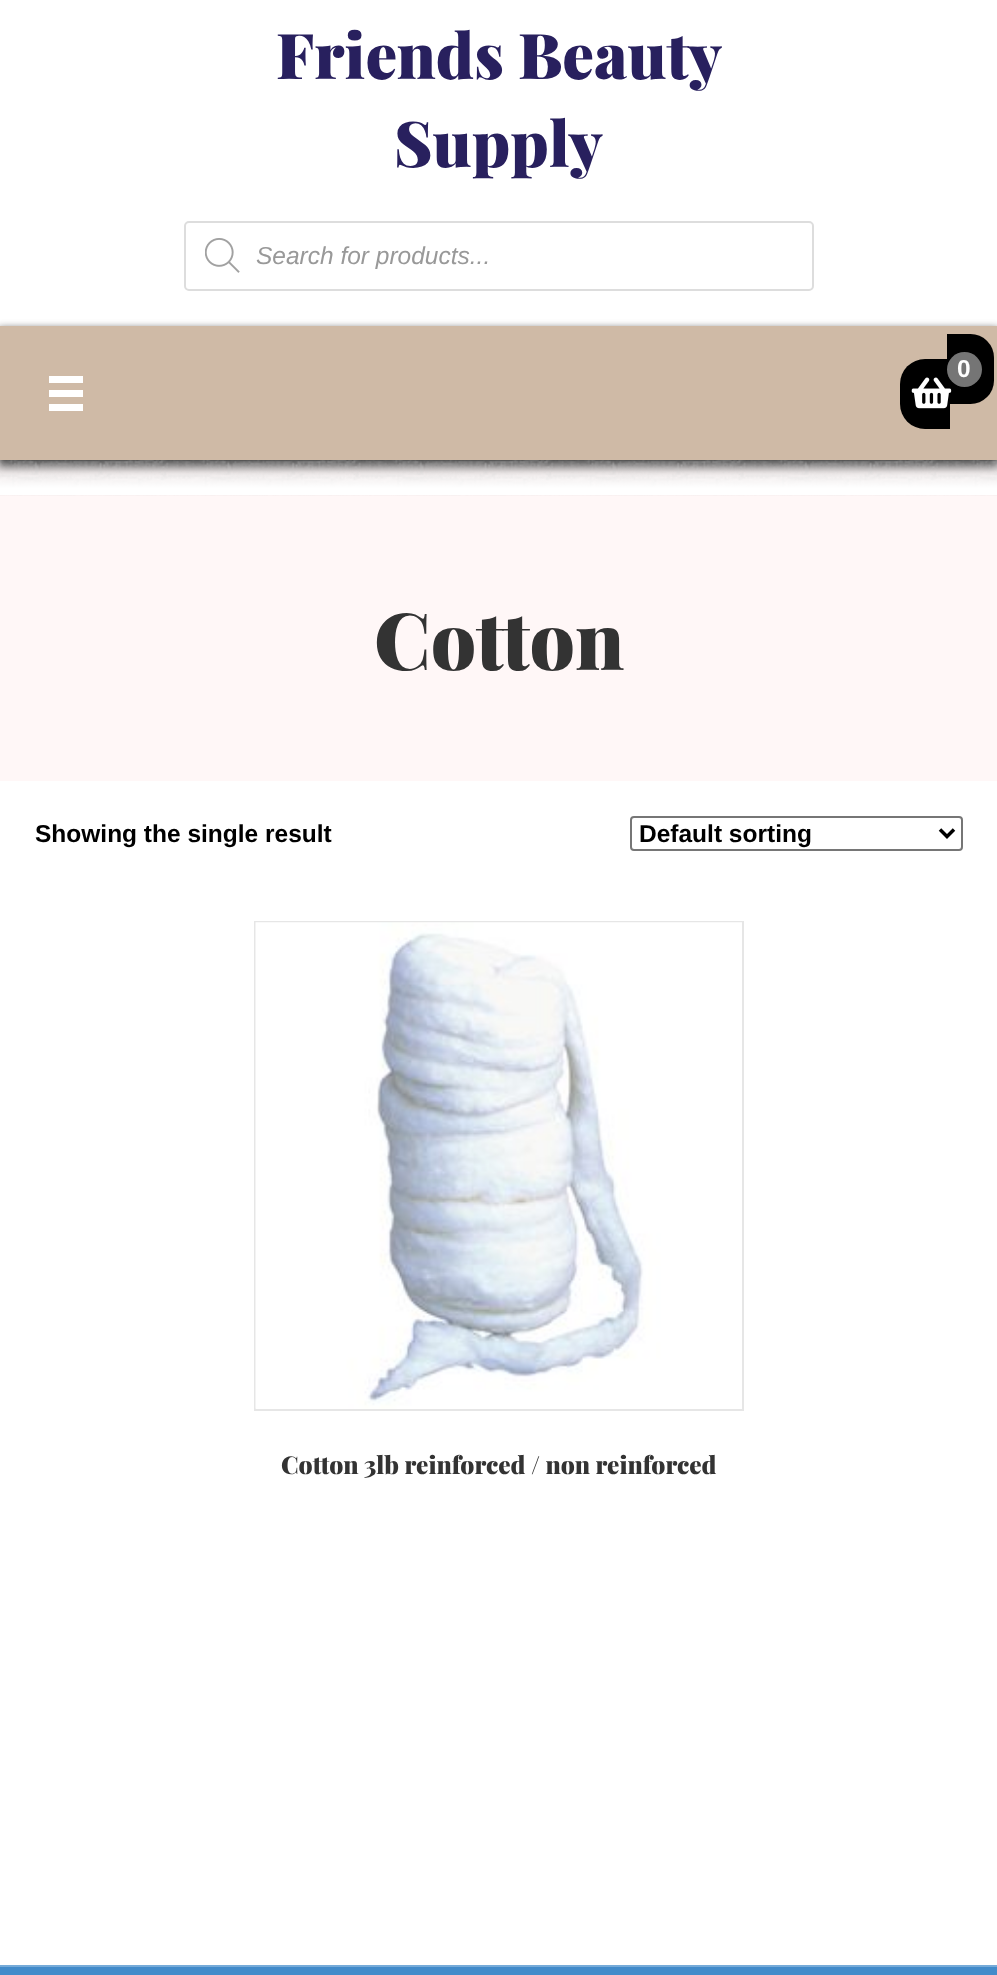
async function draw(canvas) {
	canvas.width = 997;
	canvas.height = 1975;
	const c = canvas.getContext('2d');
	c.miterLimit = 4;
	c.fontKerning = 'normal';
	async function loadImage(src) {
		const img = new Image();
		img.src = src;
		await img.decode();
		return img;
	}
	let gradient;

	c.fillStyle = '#fff7f7';
	c.fillRect(0, 0, 997, 1975);
	c.fillStyle = '#fff';
	c.fillRect(0, 0, 997, 326);
	c.font = '900 63px Playfair Display';
	c.fillStyle = '#28205e';
	c.fillText('Friends Beauty', 276, 79);
	c.fillText('Supply', 394, 167);
	c.beginPath();
	c.roundRect(185, 222, 628, 68, 4);
	c.strokeStyle = '#ddd';
	c.lineWidth = 2;
	c.stroke();
	c.drawImage(await loadImage('img1.png'), 205, 238, 35, 35);
	c.font = 'italic 24.5px Liberation Sans';
	c.fillStyle = '#999';
	c.fillText('Search for products...', 256, 264);
	c.fillStyle = '#333';
	c.filter = 'blur(4.5px)';
	c.beginPath();
	c.rect(-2, 329, 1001, 138);
	c.fill();
	c.filter = 'none';
	c.fillStyle = '#cfbaa6';
	c.fillRect(0, 326, 997, 134);
	c.fillStyle = '#000';
	c.beginPath();
	c.roundRect(900, 359, 50, 70, [25, 0, 0, 25]);
	c.fill();
	c.beginPath();
	c.roundRect(947, 334, 47, 70, [0, 23.5, 23.5, 0]);
	c.fill();
	c.drawImage(await loadImage('img2.png'), 911, 377, 41, 32);
	c.fillStyle = '#757575';
	c.beginPath();
	c.arc(964.5, 369.5, 17.5, 0, 2 * Math.PI);
	c.fill();
	c.font = 'bold 24.5px Liberation Sans';
	c.fillStyle = '#fff';
	c.fillText('0', 957, 377);
	for (const [x, y, w, h, color] of [
		[49, 376, 34, 7, '#fff'],
		[49, 390, 34, 7, '#fff'],
		[49, 404, 34, 7, '#fff'],
	]) {
		c.fillStyle = color;
		c.fillRect(x, y, w, h);
	}
	c.drawImage(await loadImage('img3.png'), 0, 460, 997, 36);
	gradient = c.createLinearGradient(499, 460, 499, 495);
	gradient.addColorStop(0.3, '#ffffff00');
	gradient.addColorStop(0.8, '#fff');
	c.fillStyle = gradient;
	c.fillRect(0, 471, 997, 24);
	c.font = '900 79px Playfair Display';
	c.fillStyle = '#333';
	c.fillText('Cotton', 374, 670);
	c.fillStyle = '#fff';
	c.fillRect(0, 781, 997, 1184);
	c.font = 'bold 24.5px Liberation Sans';
	c.fillStyle = '#000';
	c.fillText('Showing the single result', 35, 842);
	c.beginPath();
	c.roundRect(631, 817, 331, 33, 3);
	c.strokeStyle = '#767676';
	c.stroke();
	c.beginPath();
	c.moveTo(940, 829.5);
	c.lineTo(947, 836.5);
	c.lineTo(954, 829.5);
	c.strokeStyle = '#000';
	c.lineWidth = 3.5;
	c.stroke();
	c.fillText('Default sorting', 639, 842);
	c.strokeStyle = '#e6e6e6';
	c.lineWidth = 2;
	c.strokeRect(255, 922, 488, 488);
	c.drawImage(await loadImage('img4.png'), 255, 922, 487, 487);
	c.font = '900 24.5px Playfair Display';
	c.fillStyle = '#333';
	c.fillText('Cotton 3lb reinforced / non reinforced', 281, 1474);
	c.fillStyle = '#428bca';
	c.fillRect(0, 1967, 997, 8);
	c.fillStyle = '#76abd9';
	c.fillRect(0, 1965, 997, 2);
}

draw(document.querySelector('canvas'));
